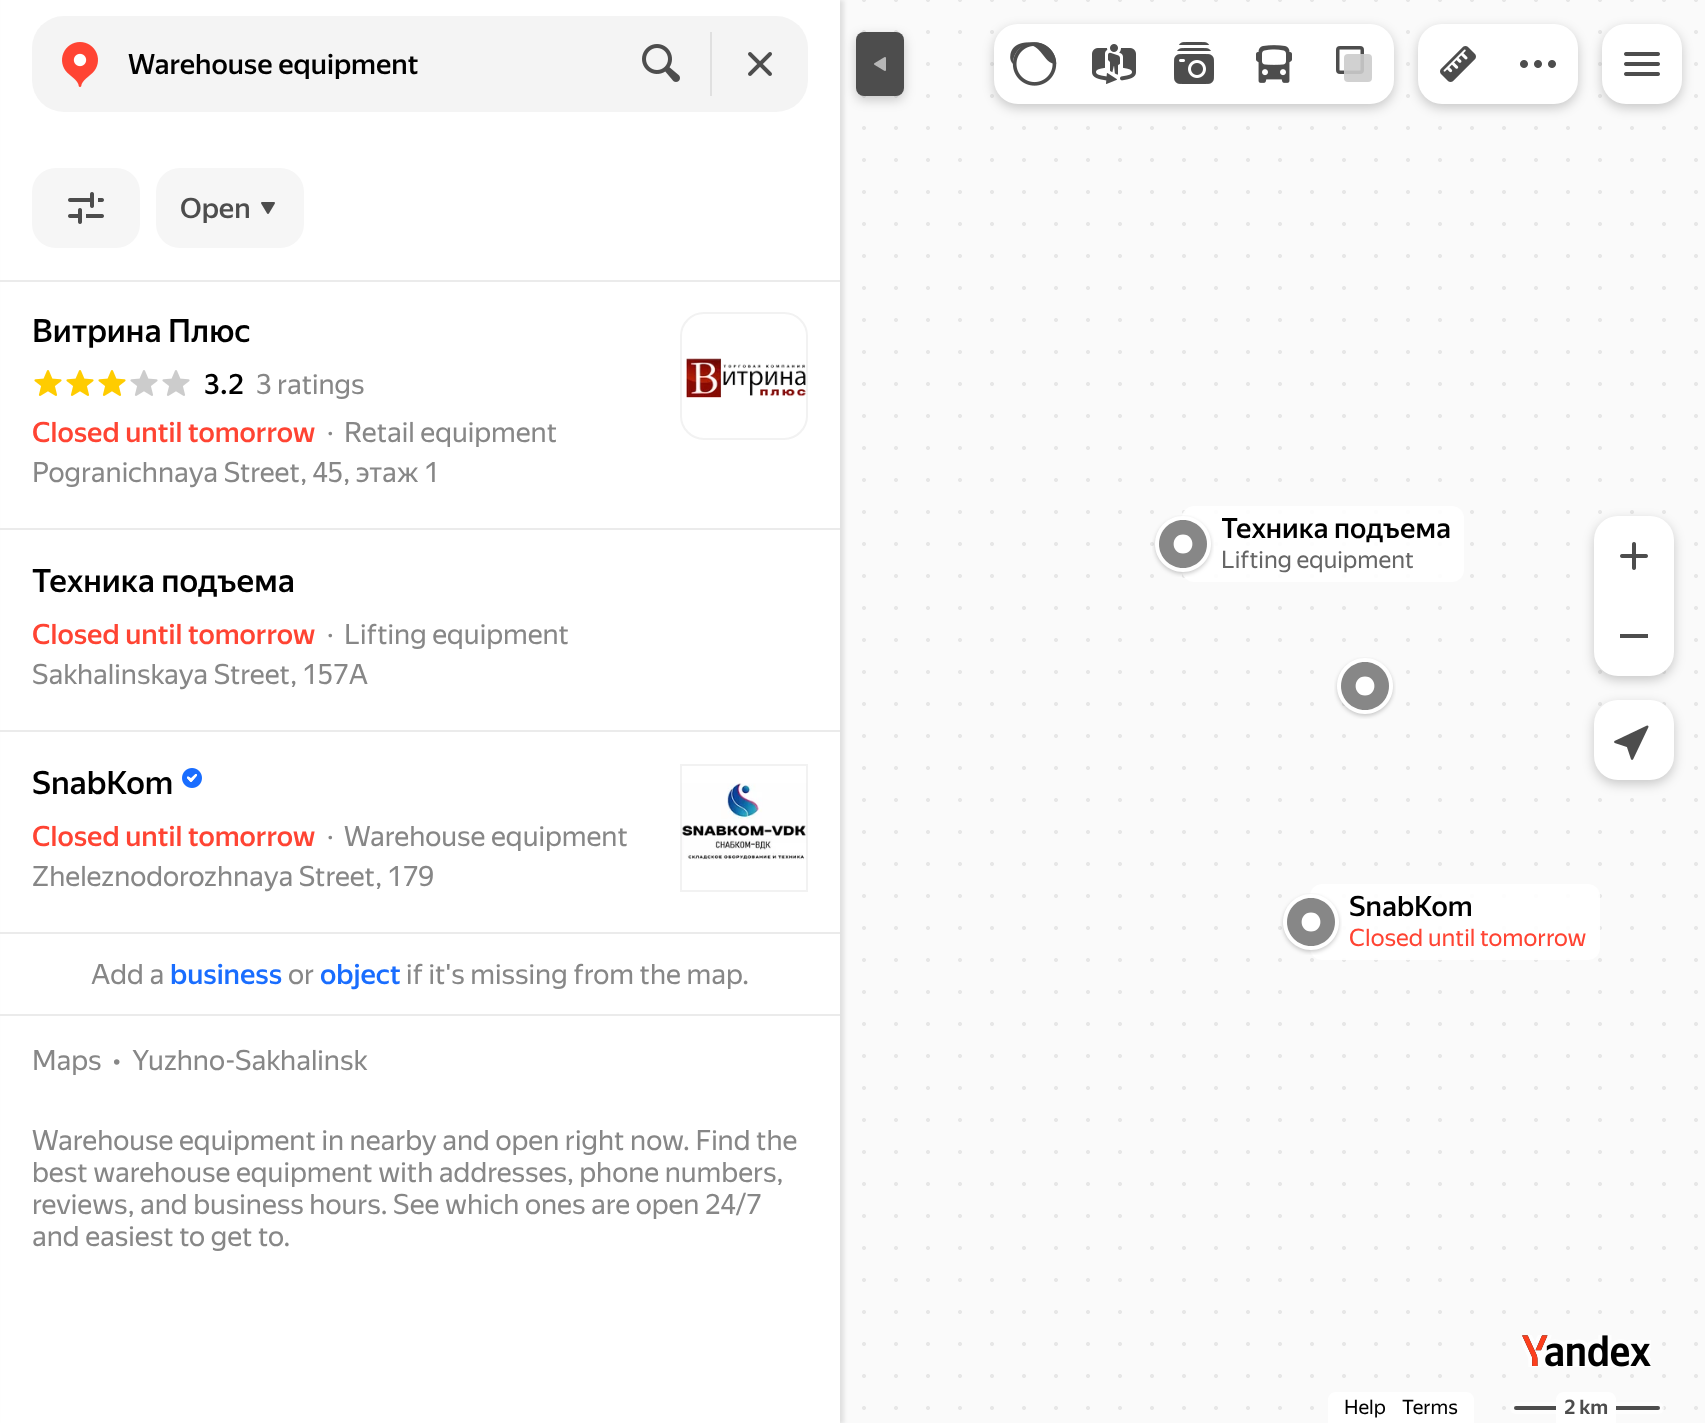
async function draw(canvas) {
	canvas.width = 1705;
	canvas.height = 1423;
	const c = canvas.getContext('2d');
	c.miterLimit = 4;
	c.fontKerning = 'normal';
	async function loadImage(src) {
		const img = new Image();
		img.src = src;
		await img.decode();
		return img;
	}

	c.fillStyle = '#fff';
	c.fillRect(0, 0, 1705, 1423);
	c.drawImage(await loadImage('img1.png'), 840, 0, 865, 1423);
	c.fillStyle = '#0000001a';
	c.filter = 'blur(2px)';
	c.beginPath();
	c.rect(4, 0, 840, 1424);
	c.fill();
	c.filter = 'none';
	c.fillStyle = '#00000033';
	c.filter = 'blur(6px)';
	c.beginPath();
	c.roundRect(856, 36, 48, 64, 8);
	c.fill();
	c.filter = 'none';
	c.fillStyle = '#fff';
	c.fillRect(1, 0, 839, 1423);
	c.fillStyle = '#f4f4f4';
	c.beginPath();
	c.roundRect(32, 16, 776, 96, 32);
	c.fill();
	c.drawImage(await loadImage('img2.png'), 62, 42, 36, 45);
	c.font = '500 28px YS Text';
	c.fillStyle = '#000';
	c.fillText('Warehouse equipment', 128, 74);
	c.drawImage(await loadImage('img3.png'), 642, 44, 38, 38);
	c.fillStyle = '#e0e0e0';
	c.fillRect(710, 32, 2, 64);
	c.drawImage(await loadImage('img4.png'), 748, 52, 24, 24);
	c.fillStyle = '#00000033';
	c.filter = 'blur(6px)';
	c.beginPath();
	c.roundRect(994, 28, 400, 80, 24);
	c.fill();
	c.filter = 'none';
	c.fillStyle = '#fff';
	c.beginPath();
	c.roundRect(994, 24, 80, 80, [24, 0, 0, 24]);
	c.fill();
	c.drawImage(await loadImage('img5.png'), 1010, 42, 47, 44);
	c.fillRect(1074, 24, 240, 80);
	c.drawImage(await loadImage('img6.png'), 1092, 44, 44, 40);
	c.beginPath();
	c.roundRect(1314, 24, 80, 80, [0, 24, 24, 0]);
	c.fill();
	c.drawImage(await loadImage('img7.png'), 1336, 46, 36, 36);
	c.drawImage(await loadImage('img8.png'), 1174, 42, 40, 42);
	c.drawImage(await loadImage('img9.png'), 1256, 45, 36, 38);
	c.fillStyle = '#00000033';
	c.filter = 'blur(6px)';
	c.beginPath();
	c.roundRect(1418, 28, 160, 80, 24);
	c.fill();
	c.filter = 'none';
	c.fillStyle = '#fff';
	c.beginPath();
	c.roundRect(1418, 24, 80, 80, [24, 0, 0, 24]);
	c.fill();
	c.drawImage(await loadImage('img10.png'), 1440, 46, 36, 36);
	c.beginPath();
	c.roundRect(1498, 24, 80, 80, [0, 24, 24, 0]);
	c.fill();
	c.drawImage(await loadImage('img11.png'), 1520, 60, 36, 8);
	c.fillStyle = '#00000033';
	c.filter = 'blur(6px)';
	c.beginPath();
	c.roundRect(1602, 28, 80, 80, 24);
	c.fill();
	c.filter = 'none';
	c.fillStyle = '#fff';
	c.beginPath();
	c.roundRect(1602, 24, 80, 80, 24);
	c.fill();
	c.drawImage(await loadImage('img12.png'), 1624, 52, 36, 24);
	c.fillStyle = '#00000033';
	c.filter = 'blur(6px)';
	c.beginPath();
	c.roundRect(1594, 520, 80, 160, 24);
	c.fill();
	c.filter = 'none';
	c.fillStyle = '#fff';
	c.beginPath();
	c.roundRect(1594, 516, 80, 80, [24, 24, 0, 0]);
	c.fill();
	c.drawImage(await loadImage('img13.png'), 1620, 542, 28, 28);
	c.beginPath();
	c.roundRect(1594, 596, 80, 80, [0, 0, 24, 24]);
	c.fill();
	c.fillStyle = '#4d4d4d';
	c.fillRect(1620, 634, 28, 4);
	c.fillStyle = '#00000033';
	c.filter = 'blur(6px)';
	c.beginPath();
	c.roundRect(1594, 704, 80, 80, 24);
	c.fill();
	c.filter = 'none';
	c.fillStyle = '#fff';
	c.beginPath();
	c.roundRect(1594, 700, 80, 80, 24);
	c.fill();
	c.drawImage(await loadImage('img14.png'), 1614, 725, 35, 35);
	c.fillStyle = '#4d4d4d';
	c.beginPath();
	c.roundRect(856, 32, 48, 64, 8);
	c.fill();
	c.drawImage(await loadImage('img15.png'), 874, 57, 12, 14);
	c.fillStyle = '#ebebeb';
	c.fillRect(0, 280, 840, 2);
	c.fillStyle = '#f6f6f6';
	c.beginPath();
	c.roundRect(32, 168, 108, 80, 24);
	c.fill();
	c.drawImage(await loadImage('img16.png'), 68, 192, 36, 32);
	c.beginPath();
	c.roundRect(156, 168, 148, 80, 24);
	c.fill();
	c.fillStyle = '#4d4d4d';
	c.fillText('Open', 180, 218);
	c.drawImage(await loadImage('img17.png'), 261, 202, 14, 12);
	c.fillStyle = '#ebebeb';
	c.fillRect(0, 528, 840, 2);
	c.font = '500 32px YS Text';
	c.fillStyle = '#000';
	c.fillText('Витрина Плюс', 32, 342);
	c.drawImage(await loadImage('img18.png'), 686, 358, 120, 40);
	c.beginPath();
	c.roundRect(681, 313, 126, 126, 23);
	c.strokeStyle = '#f2f2f2';
	c.lineWidth = 2;
	c.stroke();
	c.drawImage(await loadImage('img19.png'), 34, 370, 28, 26);
	c.drawImage(await loadImage('img19.png'), 66, 370, 28, 26);
	c.drawImage(await loadImage('img19.png'), 98, 370, 28, 26);
	c.drawImage(await loadImage('img20.png'), 130, 370, 28, 26);
	c.drawImage(await loadImage('img20.png'), 162, 370, 28, 26);
	c.font = '500 28px YS Text';
	c.fillText('3.2', 204, 394);
	c.font = '28px YS Text';
	c.fillStyle = '#878787';
	c.fillText('3 ratings', 256, 394);
	c.font = '500 28px YS Text';
	c.fillStyle = '#f43';
	c.fillText('Closed until tomorrow', 32, 442);
	c.font = '28px YS Text';
	c.fillStyle = '#878787';
	for (const [text, x, y] of [
		['·', 327, 442],
		['Retail equipment', 344, 442],
		['Pogranichnaya Street, 45, этаж 1', 32, 482],
	]) {
		c.fillText(text, x, y);
	}
	c.fillStyle = '#ebebeb';
	c.fillRect(0, 730, 840, 2);
	c.font = '500 32px YS Text';
	c.fillStyle = '#000';
	c.fillText('Техника подъема', 32, 592);
	c.font = '500 28px YS Text';
	c.fillStyle = '#f43';
	c.fillText('Closed until tomorrow', 32, 644);
	c.font = '28px YS Text';
	c.fillStyle = '#878787';
	for (const [text, x, y] of [
		['·', 327, 644],
		['Lifting equipment', 344, 644],
		['Sakhalinskaya Street, 157А', 32, 684],
	]) {
		c.fillText(text, x, y);
	}
	c.fillStyle = '#ebebeb';
	c.fillRect(0, 932, 840, 2);
	c.font = '500 32px YS Text';
	c.fillStyle = '#000';
	c.fillText('SnabKom', 32, 794);
	c.drawImage(await loadImage('img21.png'), 182, 768, 20, 20);
	c.drawImage(await loadImage('img22.png'), 681, 783, 126, 77);
	c.strokeStyle = '#0000000d';
	c.strokeRect(681, 765, 126, 126);
	c.font = '500 28px YS Text';
	c.fillStyle = '#f43';
	c.fillText('Closed until tomorrow', 32, 846);
	c.font = '28px YS Text';
	c.fillStyle = '#878787';
	for (const [text, x, y] of [
		['·', 327, 846],
		['Warehouse equipment', 344, 846],
		['Zheleznodorozhnaya Street, 179', 32, 886],
		['Add a', 91, 984],
	]) {
		c.fillText(text, x, y);
	}
	c.font = '500 28px YS Text';
	c.fillStyle = '#196dff';
	c.fillText('business', 170, 984);
	c.font = '28px YS Text';
	c.fillStyle = '#878787';
	c.fillText('or', 288, 984);
	c.font = '500 28px YS Text';
	c.fillStyle = '#196dff';
	c.fillText('object', 320, 984);
	c.font = '28px YS Text';
	c.fillStyle = '#878787';
	c.fillText('if it\'s missing from the map.', 406, 984);
	c.fillStyle = '#ebebeb';
	c.fillRect(0, 1014, 840, 2);
	c.fillStyle = '#878787';
	for (const [text, x, y] of [
		['Maps', 32, 1070],
		['•', 113, 1070],
		['Yuzhno-Sakhalinsk', 132, 1070],
		['Warehouse equipment in nearby and open right now. Find the', 32, 1150],
		['best warehouse equipment with addresses, phone numbers,', 32, 1182],
		['reviews, and business hours. See which ones are open 24/7', 32, 1214],
		['and easiest to get to.', 32, 1246],
	]) {
		c.fillText(text, x, y);
	}
	c.drawImage(await loadImage('img23.png'), 1522, 1335, 129, 32);
	c.fillStyle = '#fff';
	c.beginPath();
	c.moveTo(1336, 1392);
	c.lineTo(1466, 1392);
	c.bezierCurveTo(1470.5, 1392, 1474, 1395.5, 1474, 1400);
	c.lineTo(1474, 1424);
	c.lineTo(1328, 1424);
	c.lineTo(1328, 1400);
	c.bezierCurveTo(1328, 1395.5, 1331.5, 1392, 1336, 1392);
	c.closePath();
	c.fill();
	c.font = '20px YS Text';
	c.fillStyle = '#000';
	c.fillText('Help', 1344, 1414);
	c.fillText('Terms', 1402, 1414);
	c.fillStyle = '#ffffff99';
	c.beginPath();
	c.roundRect(1510, 1402, 154, 12, 6);
	c.fill();
	c.fillStyle = '#4d4d4d';
	c.beginPath();
	c.roundRect(1514, 1406, 146, 4, 2);
	c.fill();
	c.fillStyle = '#fff';
	c.beginPath();
	c.moveTo(1564, 1392);
	c.lineTo(1608, 1392);
	c.bezierCurveTo(1612.5, 1392, 1616, 1395.5, 1616, 1400);
	c.lineTo(1616, 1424);
	c.lineTo(1556, 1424);
	c.lineTo(1556, 1400);
	c.bezierCurveTo(1556, 1395.5, 1559.5, 1392, 1564, 1392);
	c.closePath();
	c.fill();
	c.font = 'bold 20px YS Text';
	c.fillStyle = '#4d4d4d';
	c.fillText('2 km', 1564, 1414);
	c.fillStyle = '#ffffffe6';
	c.beginPath();
	c.roundRect(1182, 506, 36, 76, [12, 0, 0, 12]);
	c.fill();
	c.drawImage(await loadImage('img24.png'), 1152, 515, 62, 62);
	c.fillStyle = '#fff';
	c.beginPath();
	c.moveTo(1183, 553.5);
	c.bezierCurveTo(1195.5, 553.5, 1195.5, 534.5, 1183, 534.5);
	c.bezierCurveTo(1170.5, 534.5, 1170.5, 553.5, 1183, 553.5);
	c.closePath();
	c.fill('evenodd');
	c.fillStyle = '#ffffffe6';
	c.beginPath();
	c.roundRect(1218, 506, 246, 76, [0, 12, 12, 0]);
	c.fill();
	c.save();
	c.beginPath();
	c.rect(1222, 512, 230, 32);
	c.clip();
	c.font = '500 28px YS Text';
	c.fillStyle = '#000';
	c.fillText('Техника подъема', 1221, 538);
	c.restore();
	c.font = '24px YS Text';
	c.fillStyle = '#666';
	c.fillText('Lifting equipment', 1221, 568);
	c.drawImage(await loadImage('img25.png'), 1334, 657, 62, 62);
	c.fillStyle = '#fff';
	c.beginPath();
	c.moveTo(1365, 695.5);
	c.bezierCurveTo(1377.5, 695.5, 1377.5, 676.5, 1365, 676.5);
	c.bezierCurveTo(1352.5, 676.5, 1352.5, 695.5, 1365, 695.5);
	c.closePath();
	c.fill('evenodd');
	c.fillStyle = '#ffffffe6';
	c.beginPath();
	c.roundRect(1310, 884, 36, 76, [12, 0, 0, 12]);
	c.fill();
	c.drawImage(await loadImage('img26.png'), 1280, 893, 62, 62);
	c.fillStyle = '#fff';
	c.beginPath();
	c.moveTo(1311, 931.5);
	c.bezierCurveTo(1323.5, 931.5, 1323.5, 912.5, 1311, 912.5);
	c.bezierCurveTo(1298.5, 912.5, 1298.5, 931.5, 1311, 931.5);
	c.closePath();
	c.fill('evenodd');
	c.fillStyle = '#ffffffe6';
	c.beginPath();
	c.roundRect(1346, 884, 254, 76, [0, 12, 12, 0]);
	c.fill();
	c.font = '500 28px YS Text';
	c.fillStyle = '#000';
	c.fillText('SnabKom', 1349, 916);
	c.font = '24px YS Text';
	c.fillStyle = '#f43';
	c.fillText('Closed until tomorrow', 1349, 946);
}

draw(document.querySelector('canvas'));
